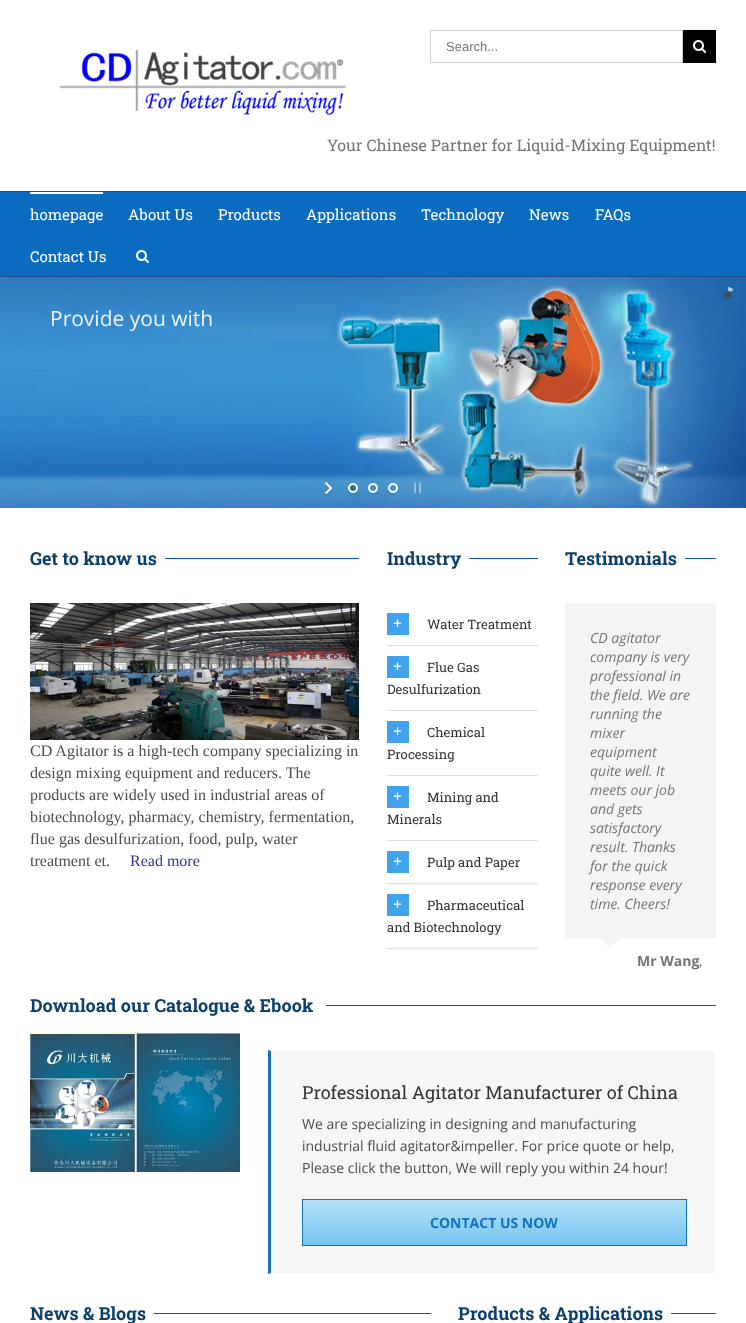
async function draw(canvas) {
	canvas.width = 746;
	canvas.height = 1323;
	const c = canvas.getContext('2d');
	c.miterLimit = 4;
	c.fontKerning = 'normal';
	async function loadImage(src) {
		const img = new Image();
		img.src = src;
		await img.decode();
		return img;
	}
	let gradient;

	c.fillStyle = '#fff';
	c.fillRect(0, 0, 746, 1323);
	c.fillStyle = '#224b91';
	c.fillRect(0, 191, 746, 1);
	c.strokeStyle = '#d2d2d2';
	c.strokeRect(430.5, 30.5, 252, 32);
	c.font = '13px Liberation Sans';
	c.fillStyle = '#757575';
	c.fillText('Search...', 446, 51);
	c.fillStyle = '#000';
	c.fillRect(683, 30, 33, 33);
	c.drawImage(await loadImage('img1.png'), 693, 40, 13, 13);
	c.drawImage(await loadImage('img2.png'), 59, 49, 287, 67);
	c.font = '16px Roboto Slab';
	c.fillStyle = '#757575';
	c.fillText('Your Chinese Partner for Liquid-Mixing Equipment!', 327, 151);
	for (const [x, y, w, h, color] of [
		[0, 192, 746, 84, '#0b6bbf'],
		[0, 276, 746, 1, '#224b91'],
		[30, 192, 73, 2, '#fff'],
	]) {
		c.fillStyle = color;
		c.fillRect(x, y, w, h);
	}
	c.font = '15px Roboto Slab';
	for (const [text, x, y] of [
		['homepage', 30, 220],
		['About Us', 128, 220],
		['Products', 218, 220],
		['Applications', 306, 220],
		['Technology', 421, 220],
		['News', 529, 220],
		['FAQs', 595, 220],
		['Contact Us', 30, 262],
	]) {
		c.fillText(text, x, y);
	}
	c.drawImage(await loadImage('img3.png'), 136, 250, 13, 13);
	c.drawImage(await loadImage('img4.png'), 0, 277, 746, 231);
	c.save();
	c.beginPath();
	c.rect(728, 287, 8, 16);
	c.clip();
	c.fillStyle = '#b1cae2';
	c.beginPath();
	c.moveTo(733.5, 289.5);
	c.lineTo(722.5, 300.5);
	c.bezierCurveTo(715, 293, 726, 282, 733.5, 289.5);
	c.closePath();
	c.fill();
	c.restore();
	c.fillStyle = '#385068';
	c.beginPath();
	c.arc(728, 295, 4, 0, 2 * Math.PI);
	c.fill();
	c.font = '21px Open Sans';
	c.fillStyle = '#ecf4fa';
	c.fillText('Provide you with', 50, 326);
	c.drawImage(await loadImage('img5.png'), 325, 482, 8, 14);
	c.drawImage(await loadImage('img6.png'), 347, 483, 12, 13);
	c.drawImage(await loadImage('img7.png'), 367, 483, 12, 13);
	c.drawImage(await loadImage('img8.png'), 387, 483, 12, 13);
	c.drawImage(await loadImage('img9.png'), 413, 482, 9, 13);
	c.font = 'bold 18px Roboto Slab';
	c.fillStyle = '#0c3f6b';
	c.fillText('Get to know us', 30, 565);
	c.fillStyle = '#0155b5';
	c.fillRect(165, 558, 194, 1);
	c.drawImage(await loadImage('img10.png'), 30, 603, 329, 137);
	c.font = '16px Liberation Serif';
	c.fillStyle = '#4c4c4c';
	for (const [text, x, y] of [
		['CD Agitator is a high-tech company specializing in', 30, 756],
		['design mixing equipment and reducers. The', 30, 778],
		['products are widely used in industrial areas of', 30, 800],
		['biotechnology, pharmacy, chemistry, fermentation,', 30, 822],
		['flue gas desulfurization, food, pulp, water', 30, 844],
		['treatment et.', 30, 866],
	]) {
		c.fillText(text, x, y);
	}
	c.fillStyle = '#339';
	c.fillText('Read more', 130, 866);
	c.font = 'bold 18px Roboto Slab';
	c.fillStyle = '#0c3f6b';
	c.fillText('Industry', 387, 565);
	for (const [x, y, w, h, color] of [
		[469, 558, 69, 1, '#0155b5'],
		[387, 645, 151, 1, '#e0dede'],
		[387, 613, 22, 22, '#42a3ed'],
	]) {
		c.fillStyle = color;
		c.fillRect(x, y, w, h);
	}
	c.drawImage(await loadImage('img11.png'), 393, 619, 9, 8);
	c.font = '13px Roboto Slab';
	c.fillStyle = '#333';
	c.fillText('Water Treatment', 427, 629);
	c.fillStyle = '#e0dede';
	c.fillRect(387, 710, 151, 1);
	c.fillStyle = '#42a3ed';
	c.fillRect(387, 656, 22, 22);
	c.drawImage(await loadImage('img11.png'), 393, 662, 9, 8);
	c.fillStyle = '#333';
	c.fillText('Flue Gas', 427, 672);
	c.fillText('Desulfurization', 387, 694);
	c.fillStyle = '#e0dede';
	c.fillRect(387, 775, 151, 1);
	c.fillStyle = '#42a3ed';
	c.fillRect(387, 721, 22, 22);
	c.drawImage(await loadImage('img11.png'), 393, 727, 9, 8);
	c.fillStyle = '#333';
	c.fillText('Chemical', 427, 737);
	c.fillText('Processing', 387, 759);
	c.fillStyle = '#e0dede';
	c.fillRect(387, 840, 151, 1);
	c.fillStyle = '#42a3ed';
	c.fillRect(387, 786, 22, 22);
	c.drawImage(await loadImage('img11.png'), 393, 792, 9, 8);
	c.fillStyle = '#333';
	c.fillText('Mining and', 427, 802);
	c.fillText('Minerals', 387, 824);
	c.fillStyle = '#e0dede';
	c.fillRect(387, 883, 151, 1);
	c.fillStyle = '#42a3ed';
	c.fillRect(387, 851, 22, 22);
	c.drawImage(await loadImage('img11.png'), 393, 857, 9, 8);
	c.fillStyle = '#333';
	c.fillText('Pulp and Paper', 427, 867);
	c.fillStyle = '#e0dede';
	c.fillRect(387, 948, 151, 1);
	c.fillStyle = '#42a3ed';
	c.fillRect(387, 894, 22, 22);
	c.drawImage(await loadImage('img11.png'), 393, 900, 9, 8);
	c.fillStyle = '#333';
	c.fillText('Pharmaceutical', 427, 910);
	c.fillText('and Biotechnology', 387, 932);
	c.font = 'bold 18px Roboto Slab';
	c.fillStyle = '#0c3f6b';
	c.fillText('Testimonials', 565, 565);
	c.fillStyle = '#0155b5';
	c.fillRect(685, 558, 31, 1);
	c.fillStyle = '#f6f3f3';
	c.fillRect(565, 603, 151, 335);
	c.font = 'italic 14px Open Sans';
	c.fillStyle = '#757575';
	for (const [text, x, y] of [
		['CD agitator', 590, 643],
		['company is very', 590, 662],
		['professional in', 590, 681],
		['the field. We are', 590, 700],
		['running the', 590, 719],
		['mixer', 590, 738],
		['equipment', 590, 757],
		['quite well. It', 590, 776],
		['meets our job', 590, 795],
		['and gets', 590, 814],
		['satisfactory', 590, 833],
		['result. Thanks', 590, 852],
		['for the quick', 590, 871],
		['response every', 590, 890],
		['time. Cheers!', 590, 909],
	]) {
		c.fillText(text, x, y);
	}
	c.fillStyle = '#f6f3f3';
	c.beginPath();
	c.moveTo(600, 938);
	c.lineTo(620, 938);
	c.lineTo(610, 948);
	c.closePath();
	c.fill();
	c.font = 'bold 14px Open Sans';
	c.fillStyle = '#757575';
	c.fillText('Mr Wang', 637, 966);
	c.font = '14px Open Sans';
	c.fillText(',', 699, 966);
	c.font = 'bold 18px Roboto Slab';
	c.fillStyle = '#0c3f6b';
	c.fillText('Download our Catalogue & Ebook', 30, 1012);
	c.fillStyle = '#0155b5';
	c.fillRect(326, 1005, 390, 1);
	c.drawImage(await loadImage('img12.png'), 30, 1032, 210, 140);
	c.fillStyle = '#f6f6f6';
	c.fillRect(271, 1051, 444, 222);
	c.fillStyle = '#1e73be';
	c.beginPath();
	c.moveTo(268, 1274);
	c.lineTo(268, 1050);
	c.lineTo(271, 1051);
	c.lineTo(271, 1273);
	c.closePath();
	c.fill();
	c.font = '18px Roboto Slab';
	c.fillStyle = '#333';
	c.fillText('Professional Agitator Manufacturer of China', 302, 1099);
	c.font = '14px Open Sans';
	c.fillStyle = '#4c4c4c';
	for (const [text, x, y] of [
		['We are specializing in designing and manufacturing', 302, 1129],
		['industrial fluid agitator&impeller. For price quote or help,', 302, 1151],
		['Please click the button, We will reply you within 24 hour!', 302, 1173],
	]) {
		c.fillText(text, x, y);
	}
	gradient = c.createLinearGradient(495, 1245, 495, 1200);
	gradient.addColorStop(0, '#76c7f1');
	gradient.addColorStop(1, '#b5e0f7');
	c.fillStyle = gradient;
	c.fillRect(303, 1200, 383, 45);
	c.strokeStyle = '#1172c1';
	c.strokeRect(302.5, 1199.5, 384, 46);
	c.font = 'bold 14px Open Sans';
	c.fillStyle = '#1172c1';
	c.fillText('CONTACT US NOW', 430, 1228);
	c.font = 'bold 18px Roboto Slab';
	c.fillStyle = '#0c3f6b';
	c.fillText('News & Blogs', 30, 1320);
	c.fillStyle = '#0155b5';
	c.fillRect(154, 1313, 277, 1);
	c.fillStyle = '#0c3f6b';
	c.fillText('Products & Applications', 458, 1320);
	c.fillStyle = '#0155b5';
	c.fillRect(671, 1313, 45, 1);
}

draw(document.querySelector('canvas'));
